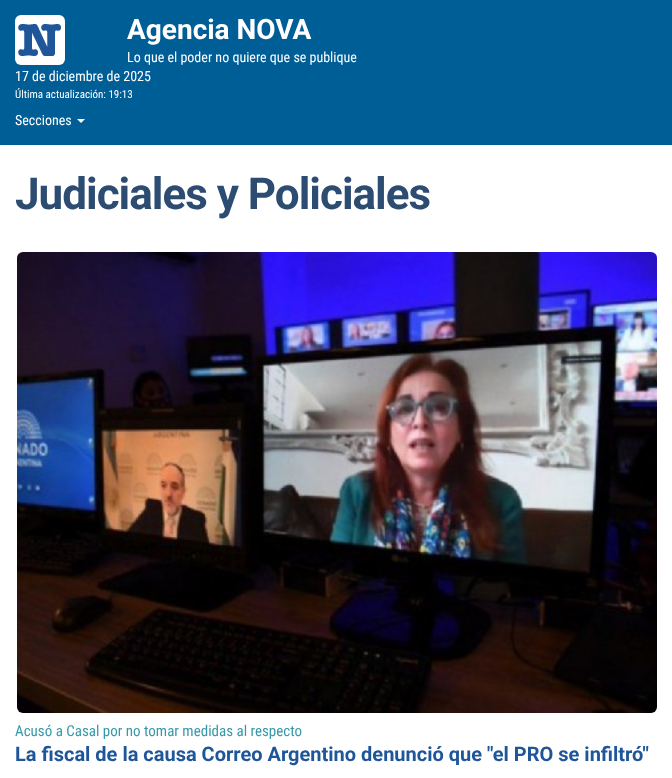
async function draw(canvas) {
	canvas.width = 672;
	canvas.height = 778;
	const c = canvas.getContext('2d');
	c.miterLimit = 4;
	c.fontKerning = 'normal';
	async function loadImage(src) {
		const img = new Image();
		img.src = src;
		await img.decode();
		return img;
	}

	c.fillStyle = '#fff';
	c.fillRect(0, 0, 672, 778);
	c.fillStyle = '#005e97';
	c.fillRect(0, 0, 672, 145);
	c.drawImage(await loadImage('img1.png'), 15, 15, 50, 50);
	c.font = 'bold 28px Roboto';
	c.fillStyle = '#fff';
	c.fillText('Agencia NOVA', 127, 39);
	c.font = '14px Roboto Condensed';
	c.fillText('Lo que el poder no quiere que se publique', 127, 62);
	c.fillText('17 de diciembre de 2025', 15, 81);
	c.font = '11px Roboto Condensed';
	c.fillText('Última actualización: 19:13', 15, 98);
	c.font = '14px Roboto Condensed';
	c.fillText('Secciones', 15, 125);
	c.beginPath();
	c.moveTo(77, 119);
	c.lineTo(85, 119);
	c.lineTo(81, 123);
	c.closePath();
	c.fill();
	c.letterSpacing = '-1px';
	c.font = 'bold 44px Roboto';
	c.fillStyle = '#2d4c72';
	c.fillText('Judiciales y Policiales', 15, 209);
	c.drawImage(await loadImage('img2.png'), 17, 252, 640, 461);
	c.letterSpacing = '0px';
	c.font = '15px Roboto Condensed';
	c.fillStyle = '#3699a9';
	c.fillText('Acusó a Casal por no tomar medidas al respecto', 15, 736);
	c.font = 'bold 20px Roboto';
	c.fillStyle = '#1f5599';
	c.fillText('La fiscal de la causa Correo Argentino denunció que "el PRO se infiltró"', 15, 761);
}

draw(document.querySelector('canvas'));
